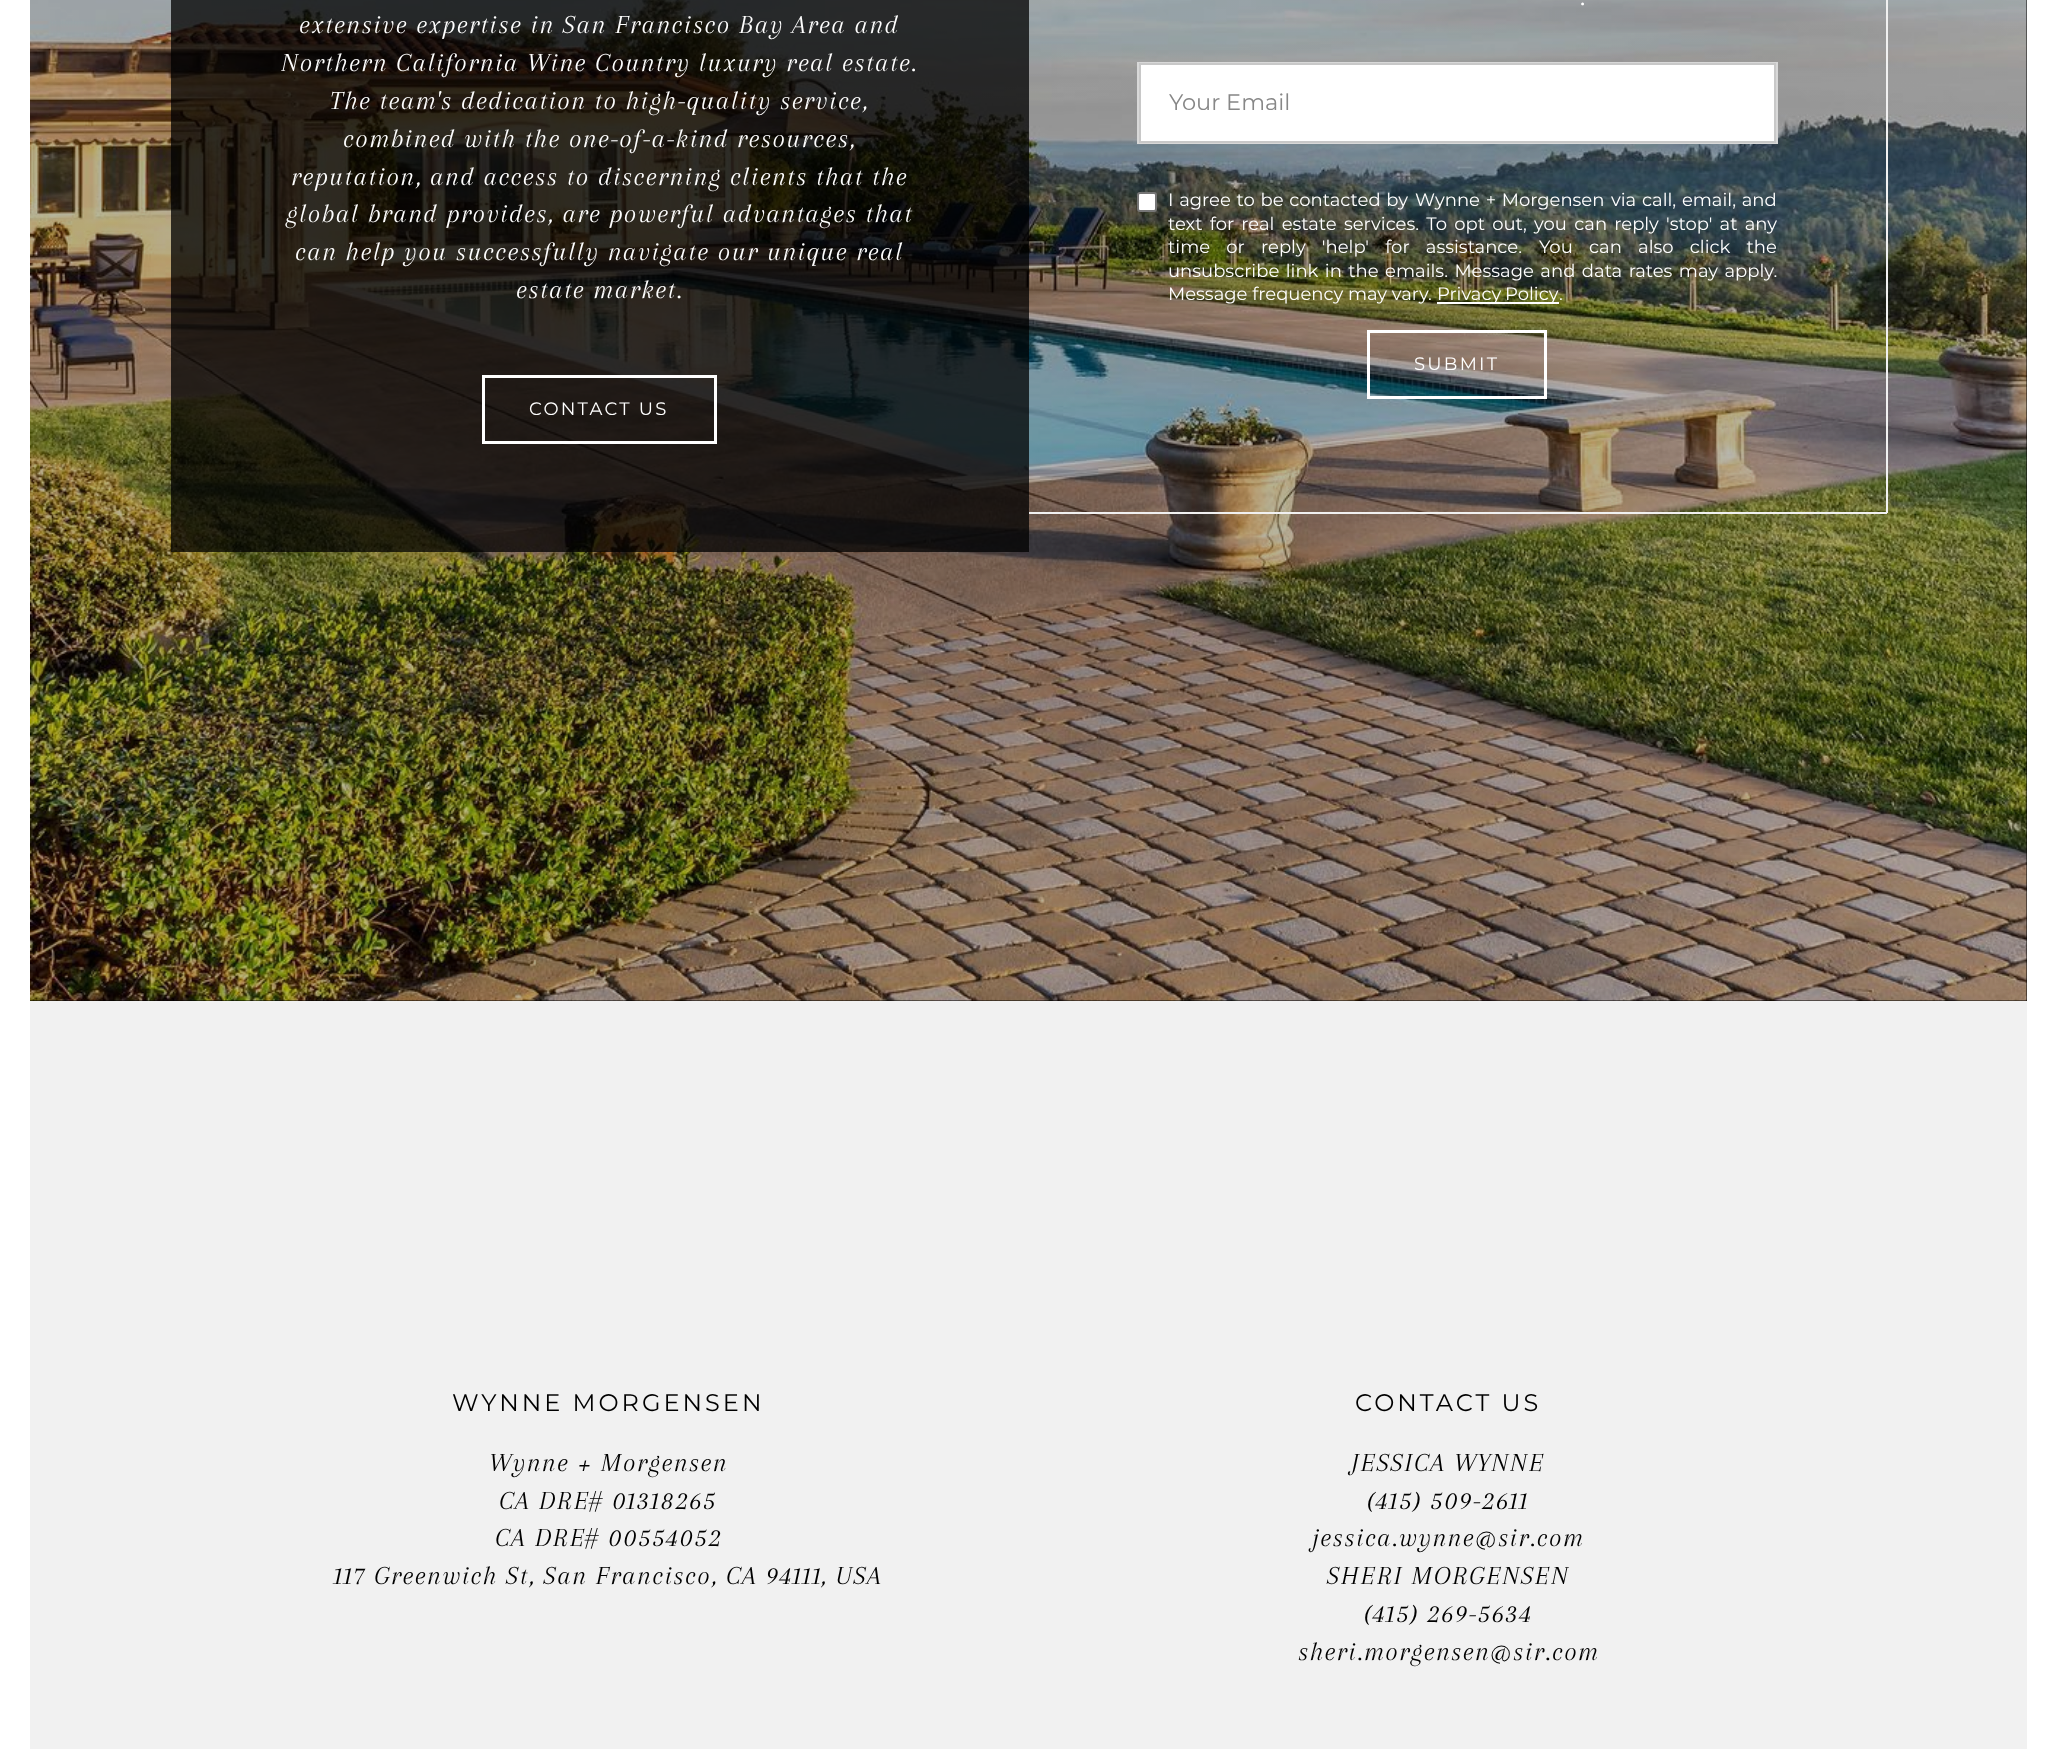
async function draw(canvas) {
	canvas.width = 2056;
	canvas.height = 1749;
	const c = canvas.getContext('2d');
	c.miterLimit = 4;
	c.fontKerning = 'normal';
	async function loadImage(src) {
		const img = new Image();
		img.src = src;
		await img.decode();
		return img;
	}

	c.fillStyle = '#fff';
	c.fillRect(0, 0, 2056, 1749);
	c.fillStyle = '#000';
	c.fillRect(30, 0, 1997, 1001);
	c.drawImage(await loadImage('img1.png'), 30, 0, 1997, 1001);
	c.fillStyle = '#000000bf';
	c.fillRect(171, 0, 858, 552);
	c.letterSpacing = '1.5px';
	c.font = 'italic 27px Arapey';
	c.fillStyle = '#fff';
	for (const [text, x, y] of [
		['extensive expertise in San Francisco Bay Area and', 299, 33],
		['Northern California Wine Country luxury real estate.', 281, 71],
		['The team\'s dedication to high-quality service,', 330, 109],
		['combined with the one-of-a-kind resources,', 343, 147],
		['reputation, and access to discerning clients that the', 291, 185],
		['global brand provides, are powerful advantages that', 286, 222],
		['can help you successfully navigate our unique real', 295, 260],
		['estate market.', 516, 298],
	]) {
		c.fillText(text, x, y);
	}
	c.strokeStyle = '#fff';
	c.lineWidth = 3;
	c.strokeRect(483.5, 376.5, 232, 66);
	c.letterSpacing = '2.25px';
	c.font = '18px Montserrat';
	c.fillText('CONTACT US', 529, 415);
	c.fillStyle = '#f1f1f1';
	c.fillRect(1886, 0, 2, 513);
	c.fillRect(1029, 512, 858, 2);
	c.letterSpacing = '1.5px';
	c.font = 'italic 27px Arapey';
	c.fillStyle = '#fff';
	c.fillText('.', 1580, 5);
	c.strokeStyle = '#d8d8d8';
	c.lineWidth = 2;
	c.strokeRect(1138, 63, 639, 80);
	c.beginPath();
	c.rect(1140, 64, 635, 78);
	c.fill();
	c.strokeStyle = '#c8c8c8';
	c.stroke();
	c.letterSpacing = '0px';
	c.font = '22.5px Montserrat';
	c.fillStyle = '#878787';
	c.fillText('Your Email', 1169, 110);
	c.fillStyle = '#fff';
	c.beginPath();
	c.roundRect(1138, 193, 18, 18, 2);
	c.fill();
	c.strokeStyle = '#767676';
	c.stroke();
	c.wordSpacing = '1px';
	c.font = '18px Montserrat';
	for (const [text, x, y] of [
		['I agree to be contacted by', 1168, 206],
		['Wynne + Morgensen', 1415, 206],
		['via call, email, and', 1611, 206],
	]) {
		c.fillText(text, x, y);
	}
	c.wordSpacing = '2.5px';
	c.fillText('text for real estate services. To opt out, you can reply \'stop\' at any', 1168, 230);
	c.wordSpacing = '11.5px';
	c.fillText('time or reply \'help\' for assistance.', 1168, 253);
	c.fillText('You can also click the', 1539, 253);
	c.wordSpacing = '1.75px';
	c.fillText('unsubscribe link in the emails. Message and data rates may apply.', 1168, 277);
	c.wordSpacing = '0px';
	c.fillText('Message frequency may vary.', 1168, 300);
	c.fillRect(1437, 302, 122, 2);
	c.wordSpacing = '-1px';
	c.fillText('Privacy Policy', 1437, 300);
	c.wordSpacing = '0px';
	c.fillText('.', 1559, 300);
	c.strokeStyle = '#fff';
	c.lineWidth = 3;
	c.strokeRect(1368.5, 331.5, 177, 66);
	c.letterSpacing = '2.25px';
	c.fillText('SUBMIT', 1414, 370);
	c.fillStyle = '#f1f1f1';
	c.fillRect(30, 1001, 1997, 748);
	c.letterSpacing = '3px';
	c.font = '24px Montserrat';
	c.fillStyle = '#000';
	c.fillText('WYNNE MORGENSEN', 452, 1411);
	c.letterSpacing = '1.5px';
	c.font = 'italic 27px Arapey';
	for (const [text, x, y] of [
		['Wynne + Morgensen', 489, 1471],
		['CA DRE# 01318265', 499, 1509],
		['CA DRE# 00554052', 495, 1546],
		['117 Greenwich St, San Francisco, CA 94111, USA', 334, 1584],
	]) {
		c.fillText(text, x, y);
	}
	c.letterSpacing = '3px';
	c.font = '24px Montserrat';
	c.fillText('CONTACT US', 1355, 1411);
	c.letterSpacing = '1.5px';
	c.font = 'italic 27px Arapey';
	for (const [text, x, y] of [
		['JESSICA WYNNE', 1351, 1471],
		['(415) 509-2611', 1367, 1509],
		['jessica.wynne@sir.com', 1312, 1546],
		['SHERI MORGENSEN', 1327, 1584],
		['(415) 269-5634', 1364, 1622],
		['sheri.morgensen@sir.com', 1298, 1660],
	]) {
		c.fillText(text, x, y);
	}
}

draw(document.querySelector('canvas'));
